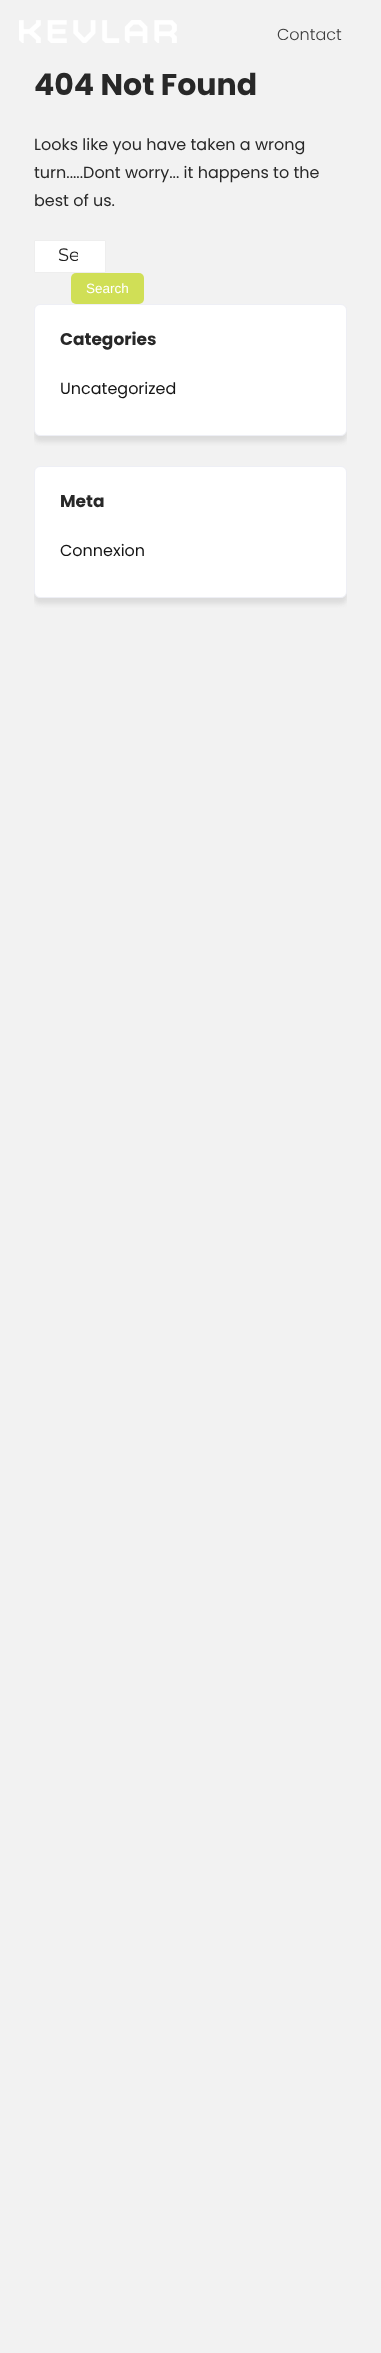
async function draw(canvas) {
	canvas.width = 381;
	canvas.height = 2353;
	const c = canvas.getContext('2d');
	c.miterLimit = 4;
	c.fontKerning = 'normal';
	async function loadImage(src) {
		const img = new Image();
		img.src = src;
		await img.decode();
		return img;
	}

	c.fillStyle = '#f2f2f2';
	c.fillRect(0, 0, 381, 2353);
	c.drawImage(await loadImage('img1.png'), 19, 20, 158, 23);
	c.font = '300 16px Poppins';
	c.fillStyle = '#3c3c3c';
	c.fillText('Contact', 277, 40);
	c.font = 'bold 30px Poppins';
	c.fillStyle = '#282828';
	c.fillText('404 Not Found', 34, 95);
	c.font = '16px Poppins';
	for (const [text, x, y] of [
		['Looks like you have taken a wrong', 34, 150],
		['turn.....Dont worry... it happens to the', 34, 178],
		['best of us.', 34, 206],
	]) {
		c.fillText(text, x, y);
	}
	c.fillStyle = '#fff';
	c.beginPath();
	c.rect(34.5, 240.5, 71, 32);
	c.fill();
	c.strokeStyle = '#eee';
	c.stroke();
	c.save();
	c.beginPath();
	c.rect(58, 244, 20, 22);
	c.clip();
	c.font = '18px Montserrat';
	c.fillStyle = '#1e1e1e';
	c.fillText('Se', 58, 261);
	c.restore();
	c.fillStyle = '#d0df56';
	c.beginPath();
	c.roundRect(71, 273, 73, 31, 5);
	c.fill();
	c.font = '13.5px Liberation Sans';
	c.fillStyle = '#fff';
	c.fillText('Search', 86, 293);
	c.save();
	c.beginPath();
	c.rect(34, 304, 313, 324);
	c.clip();
	c.fillStyle = '#dcdcdc';
	c.filter = 'blur(2px)';
	c.beginPath();
	c.roundRect(34, 310, 313, 132, 6);
	c.fill();
	c.filter = 'none';
	c.restore();
	c.beginPath();
	c.roundRect(34.5, 304.5, 312, 131, 5.5);
	c.fill();
	c.strokeStyle = '#eeeff5';
	c.stroke();
	c.font = 'bold 17px Poppins';
	c.fillStyle = '#282828';
	c.fillText('Categories', 60, 345);
	c.font = '16px Poppins';
	c.fillStyle = '#141414';
	c.fillText('Uncategorized', 60, 394);
	c.save();
	c.beginPath();
	c.rect(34, 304, 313, 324);
	c.clip();
	c.fillStyle = '#dcdcdc';
	c.filter = 'blur(2px)';
	c.beginPath();
	c.roundRect(34, 472, 313, 132, 6);
	c.fill();
	c.filter = 'none';
	c.restore();
	c.fillStyle = '#fff';
	c.beginPath();
	c.roundRect(34.5, 466.5, 312, 131, 5.5);
	c.fill();
	c.stroke();
	c.font = 'bold 17px Poppins';
	c.fillStyle = '#282828';
	c.fillText('Meta', 60, 507);
	c.font = '16px Poppins';
	c.fillStyle = '#141414';
	c.fillText('Connexion', 60, 556);
}

draw(document.querySelector('canvas'));
